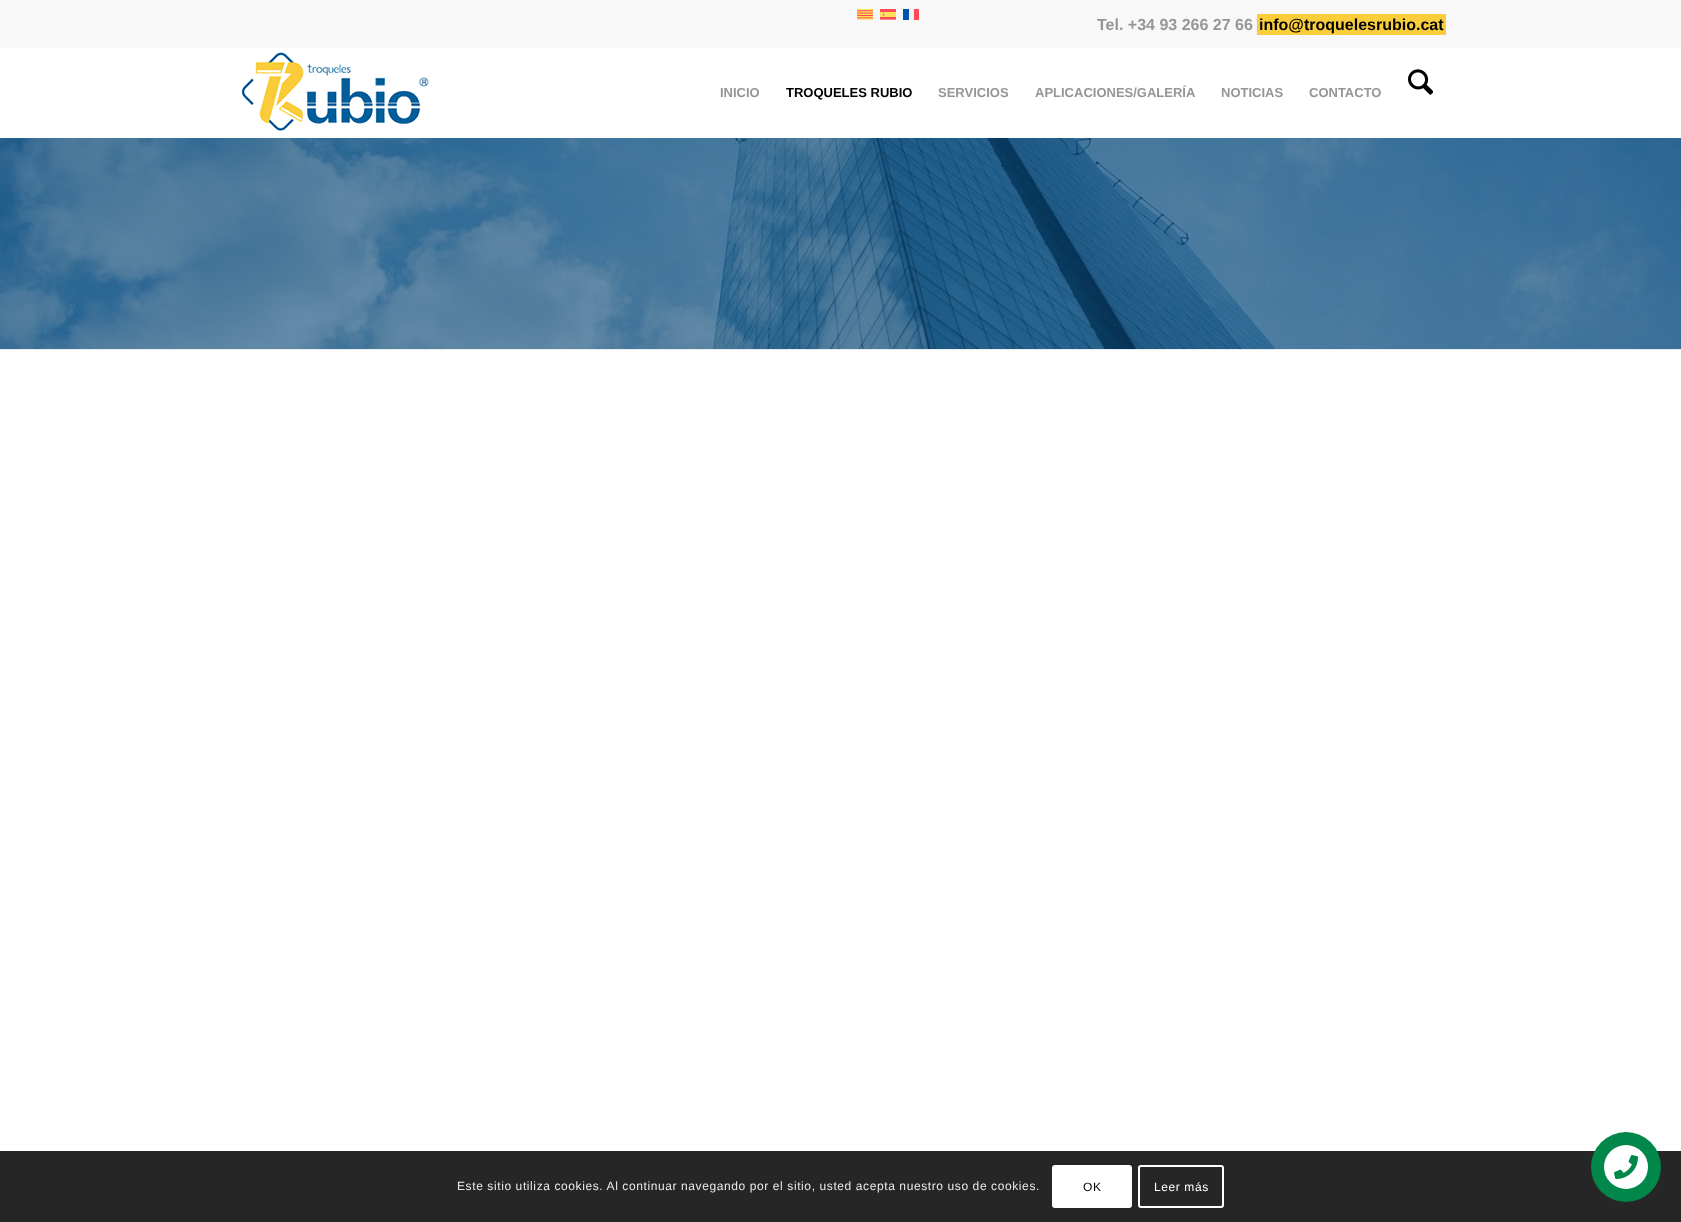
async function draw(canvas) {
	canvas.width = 1681;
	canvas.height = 1222;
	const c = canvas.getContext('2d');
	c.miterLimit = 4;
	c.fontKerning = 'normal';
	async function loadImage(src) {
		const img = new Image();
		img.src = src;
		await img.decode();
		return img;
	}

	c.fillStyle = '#fff';
	c.fillRect(0, 0, 1681, 1222);
	c.fillStyle = '#f8f8f8';
	c.fillRect(0, 0, 1681, 48);
	c.drawImage(await loadImage('img1.png'), 857, 9, 16, 11);
	c.drawImage(await loadImage('img2.png'), 880, 9, 16, 11);
	for (const [x, y, w, h, color] of [
		[909, 9, 5, 11, '#f0f0f0'],
		[914, 9, 5, 11, '#ff4b55'],
		[903, 9, 6, 11, '#0052b4'],
	]) {
		c.fillStyle = color;
		c.fillRect(x, y, w, h);
	}
	c.font = 'bold 16px Liberation Sans';
	c.fillStyle = '#969696';
	c.fillText('Tel. +34 93 266 27 66', 1097, 30);
	c.fillStyle = '#facd3a';
	c.fillRect(1257, 14, 189, 21);
	c.fillStyle = '#000';
	c.fillText('info@troquelesrubio.cat', 1259, 30);
	c.drawImage(await loadImage('img3.png'), 241, 52, 188, 79);
	c.font = 'bold 13px Liberation Sans';
	c.fillStyle = '#969696';
	c.fillText('INICIO', 720, 97);
	c.fillStyle = '#000';
	c.fillText('TROQUELES RUBIO', 786, 97);
	c.fillStyle = '#969696';
	for (const [text, x, y] of [
		['SERVICIOS', 938, 97],
		['APLICACIONES/GALERÍA', 1035, 97],
		['NOTICIAS', 1221, 97],
		['CONTACTO', 1309, 97],
	]) {
		c.fillText(text, x, y);
	}
	c.drawImage(await loadImage('img4.png'), 1408, 69, 25, 26);
	c.drawImage(await loadImage('img5.png'), 0, 138, 1681, 211);
	c.fillStyle = '#ebebeb';
	c.fillRect(0, 349, 1681, 1);
	c.fillStyle = '#262626';
	c.fillRect(0, 1151, 1681, 71);
	c.letterSpacing = '0.6px';
	c.font = '12px Liberation Sans';
	c.fillStyle = '#e9e9e9';
	c.fillText('Este sitio utiliza cookies. Al continuar navegando por el sitio, usted acepta nuestro uso de cookies.', 457, 1190);
	c.fillStyle = '#fff';
	c.beginPath();
	c.roundRect(1052, 1165, 80, 43, 3);
	c.fill();
	c.fillStyle = '#000';
	c.fillText('OK', 1083, 1191);
	c.beginPath();
	c.roundRect(1139, 1166, 84, 41, 2);
	c.strokeStyle = '#fff';
	c.lineWidth = 2;
	c.stroke();
	c.fillStyle = '#fff';
	c.fillText('Leer más', 1154, 1191);
	c.fillStyle = '#008749';
	c.beginPath();
	c.arc(1626, 1167, 35, 0, 2 * Math.PI);
	c.fill();
	c.fillStyle = '#fff';
	c.beginPath();
	c.arc(1626, 1167, 22, 0, 2 * Math.PI);
	c.fill();
	c.drawImage(await loadImage('img6.png'), 1614, 1155, 24, 24);
}

draw(document.querySelector('canvas'));
